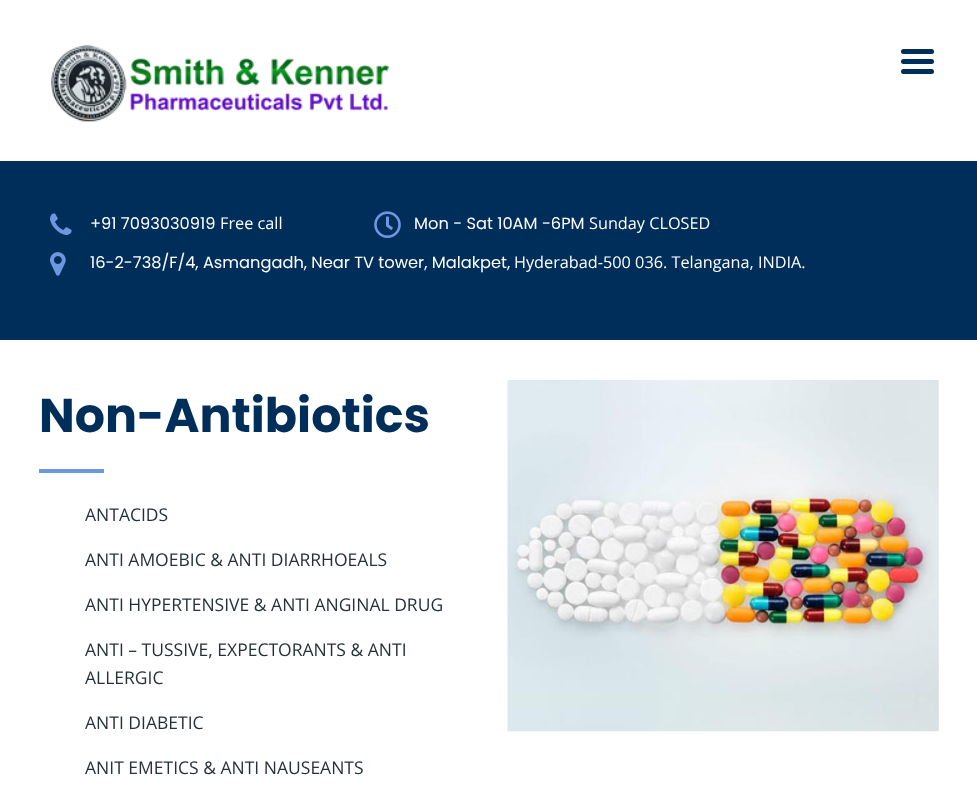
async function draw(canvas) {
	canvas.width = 977;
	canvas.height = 800;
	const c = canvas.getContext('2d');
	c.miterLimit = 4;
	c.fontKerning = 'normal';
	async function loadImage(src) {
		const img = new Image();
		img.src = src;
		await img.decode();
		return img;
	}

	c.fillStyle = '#fff';
	c.fillRect(0, 0, 977, 800);
	c.drawImage(await loadImage('img1.png'), 51, 44, 338, 78);
	c.fillStyle = '#002e5b';
	c.beginPath();
	c.roundRect(901, 59, 33, 5, 2.5);
	c.fill();
	c.beginPath();
	c.roundRect(901, 49, 33, 5, 2.5);
	c.fill();
	c.beginPath();
	c.roundRect(901, 69, 33, 5, 2.5);
	c.fill();
	c.fillRect(0, 161, 977, 179);
	c.drawImage(await loadImage('img2.png'), 50, 213, 22, 22);
	c.font = '16.25px Poppins';
	c.fillStyle = '#fff';
	c.fillText('+91 7093030919', 90, 229);
	c.font = '16.25px Open Sans';
	c.fillText('Free call', 220, 229);
	c.drawImage(await loadImage('img3.png'), 374, 211, 27, 27);
	c.font = '16.25px Poppins';
	c.fillText('Mon - Sat 10AM -6PM', 414, 229);
	c.font = '16.25px Open Sans';
	c.fillText('Sunday CLOSED', 589, 229);
	c.drawImage(await loadImage('img4.png'), 50, 252, 16, 24);
	c.font = '16.25px Poppins';
	c.fillText('16-2-738/F/4, Asmangadh, Near TV tower, Malakpet,', 90, 268);
	c.font = '16.25px Open Sans';
	c.fillText('Hyderabad-500 036. Telangana, INDIA.', 514, 268);
	c.font = 'bold 47.5px Poppins';
	c.fillStyle = '#002e5b';
	c.fillText('Non-Antibiotics', 39, 432);
	c.fillStyle = '#6c98e1';
	c.fillRect(39, 469, 65, 4);
	c.font = '17.5px Open Sans';
	c.fillStyle = '#243238';
	for (const [text, x, y] of [
		['ANTACIDS', 85, 521],
		['ANTI AMOEBIC & ANTI DIARRHOEALS', 85, 566],
		['ANTI HYPERTENSIVE & ANTI ANGINAL DRUG', 85, 611],
		['ANTI – TUSSIVE, EXPECTORANTS & ANTI', 85, 656],
		['ALLERGIC', 85, 684],
		['ANTI DIABETIC', 85, 729],
		['ANIT EMETICS & ANTI NAUSEANTS', 85, 774],
	]) {
		c.fillText(text, x, y);
	}
	c.drawImage(await loadImage('img5.png'), 507, 380, 432, 352);
}

draw(document.querySelector('canvas'));
